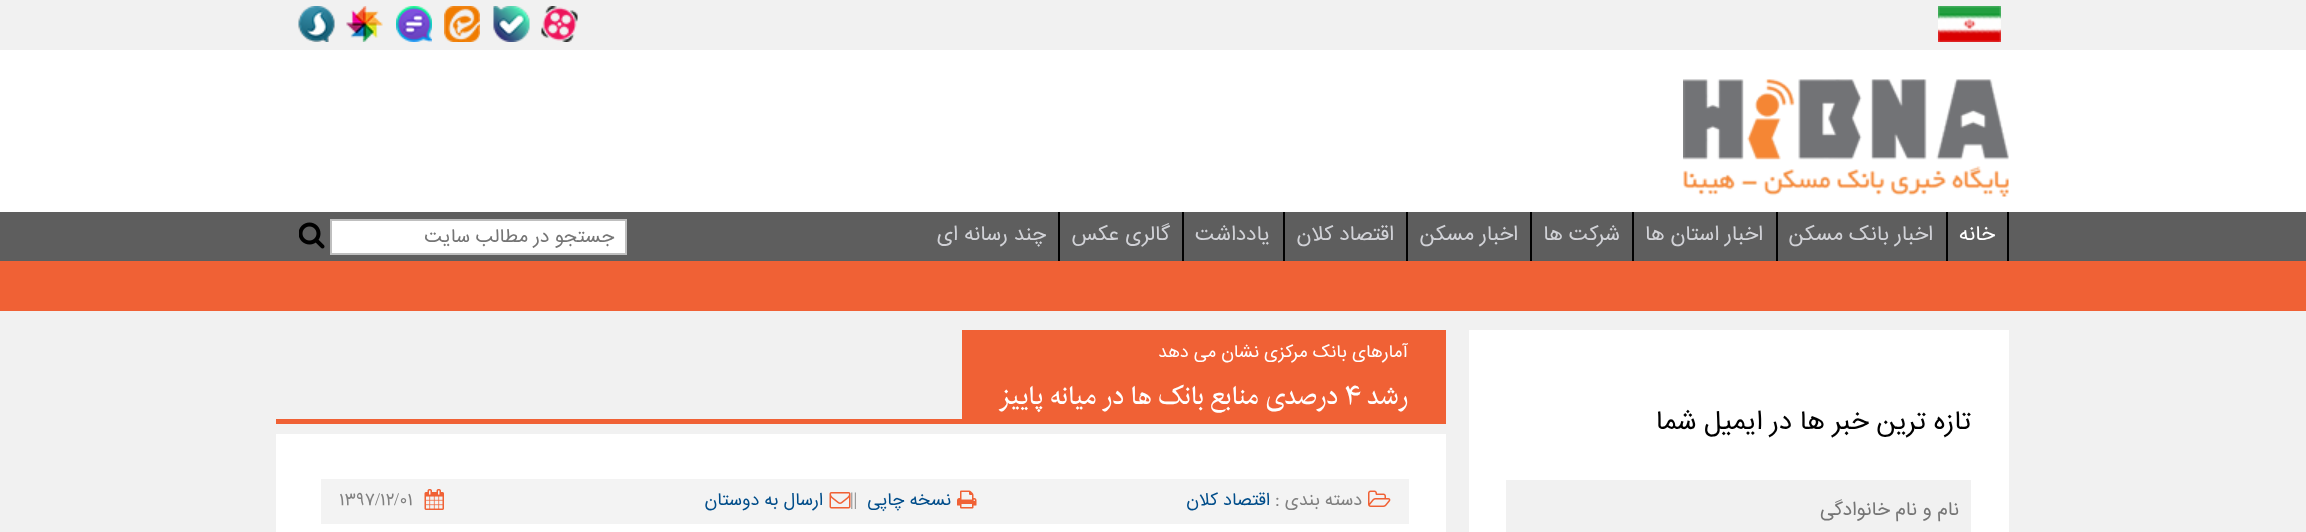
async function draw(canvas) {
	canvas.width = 2306;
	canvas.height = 532;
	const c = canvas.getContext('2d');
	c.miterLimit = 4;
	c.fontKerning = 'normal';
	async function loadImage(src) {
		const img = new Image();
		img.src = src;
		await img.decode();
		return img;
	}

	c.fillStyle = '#f1f1f1';
	c.fillRect(0, 0, 2306, 532);
	c.fillStyle = '#fff';
	c.fillRect(0, 50, 2306, 162);
	c.drawImage(await loadImage('img1.png'), 1938, 6, 63, 36);
	c.drawImage(await loadImage('img2.png'), 541, 6, 37, 36);
	c.drawImage(await loadImage('img3.png'), 493, 6, 37, 36);
	c.drawImage(await loadImage('img4.png'), 444, 6, 36, 36);
	c.drawImage(await loadImage('img5.png'), 396, 6, 36, 36);
	c.drawImage(await loadImage('img6.png'), 346, 6, 37, 36);
	c.drawImage(await loadImage('img7.png'), 298, 6, 37, 36);
	c.drawImage(await loadImage('img8.png'), 1683, 79, 326, 118);
	c.fillStyle = '#5e5e5e';
	c.fillRect(0, 212, 2306, 49);
	c.fillStyle = '#000';
	c.fillRect(2007, 212, 2, 49);
	c.direction = 'rtl';
	c.font = '21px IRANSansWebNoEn';
	c.fillStyle = '#fff';
	c.fillText('خانه', 1995, 240);
	c.fillStyle = '#000';
	c.fillRect(1946, 212, 2, 49);
	c.fillStyle = '#d1d2d7';
	c.fillText('اخبار بانک مسکن', 1933, 240);
	c.fillStyle = '#000';
	c.fillRect(1776, 212, 2, 49);
	c.fillStyle = '#d1d2d7';
	c.fillText('اخبار استان ها', 1763, 240);
	c.fillStyle = '#000';
	c.fillRect(1632, 212, 2, 49);
	c.fillStyle = '#d1d2d7';
	c.fillText('شرکت ها', 1620, 240);
	c.fillStyle = '#000';
	c.fillRect(1530, 212, 2, 49);
	c.fillStyle = '#d1d2d7';
	c.fillText('اخبار مسکن', 1518, 240);
	c.fillStyle = '#000';
	c.fillRect(1406, 212, 2, 49);
	c.fillStyle = '#d1d2d7';
	c.fillText('اقتصاد کلان', 1394, 240);
	c.fillStyle = '#000';
	c.fillRect(1283, 212, 2, 49);
	c.fillStyle = '#d1d2d7';
	c.fillText('یادداشت', 1270, 240);
	c.fillStyle = '#000';
	c.fillRect(1182, 212, 2, 49);
	c.fillStyle = '#d1d2d7';
	c.fillText('گالری عکس', 1170, 240);
	c.fillStyle = '#000';
	c.fillRect(1058, 212, 2, 49);
	c.fillStyle = '#d1d2d7';
	c.fillText('چند رسانه ای', 1046, 240);
	c.fillStyle = '#fff';
	c.beginPath();
	c.rect(331, 220, 295, 34);
	c.fill();
	c.strokeStyle = '#bfbfbf';
	c.lineWidth = 2;
	c.stroke();
	c.font = '19.5px IRANSansWebNoEn';
	c.fillStyle = '#757575';
	c.fillText('جستجو در مطالب سایت', 614, 242);
	c.drawImage(await loadImage('img9.png'), 299, 222, 26, 27);
	c.fillStyle = '#f06135';
	c.fillRect(0, 261, 2306, 50);
	c.fillStyle = '#fff';
	c.fillRect(1469, 330, 540, 202);
	c.font = '27px IRANSansWebNoEn';
	c.fillStyle = '#000';
	c.fillText('تازه ترین خبر ها در ایمیل شما', 1971, 429);
	c.fillStyle = '#f1f1f1';
	c.fillRect(1506, 480, 465, 52);
	c.font = '19.5px IRANSansWebNoEn';
	c.fillStyle = '#757575';
	c.fillText('نام و نام خانوادگی', 1959, 515);
	c.fillStyle = '#f06135';
	c.fillRect(276, 419, 1170, 5);
	c.fillRect(962, 330, 484, 89);
	c.font = '18px IRANSansWebNoEn';
	c.fillStyle = '#fff';
	c.fillText('آمارهای بانک مرکزی نشان می دهد', 1408, 357);
	c.font = '600 25.5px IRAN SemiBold';
	c.fillText('رشد', 1408, 404);
	c.direction = 'ltr';
	c.fillText('۴', 1345, 404);
	c.direction = 'rtl';
	c.fillText('درصدی منابع بانک ها در میانه پاییز', 1338, 404);
	c.fillRect(276, 434, 1170, 98);
	c.fillStyle = '#f3f3f3';
	c.fillRect(321, 479, 1088, 45);
	c.drawImage(await loadImage('img10.png'), 1368, 490, 23, 17);
	c.font = '18px IRANSansWebNoEn';
	c.fillStyle = '#808080';
	c.fillText('دسته بندی :', 1362, 505);
	c.fillStyle = '#004d8a';
	c.fillText('اقتصاد کلان', 1270, 505);
	c.drawImage(await loadImage('img11.png'), 957, 490, 20, 19);
	c.fillText('نسخه چاپی', 951, 505);
	c.direction = 'ltr';
	c.font = '18px Liberation Serif';
	c.fillStyle = '#808080';
	c.fillText('||', 850, 505);
	c.drawImage(await loadImage('img12.png'), 829, 492, 22, 17);
	c.direction = 'rtl';
	c.font = '18px IRANSansWebNoEn';
	c.fillStyle = '#004d8a';
	c.fillText('ارسال به دوستان', 823, 505);
	c.drawImage(await loadImage('img13.png'), 424, 489, 20, 21);
	c.direction = 'ltr';
	c.fillStyle = '#808080';
	c.fillText('۱۳۹۷ ۱۲ ۰۱', 339, 505);
	c.font = '18px Liberation Serif';
	c.fillText('/', 394, 505);
	c.fillText('/', 375, 505);
}

draw(document.querySelector('canvas'));
